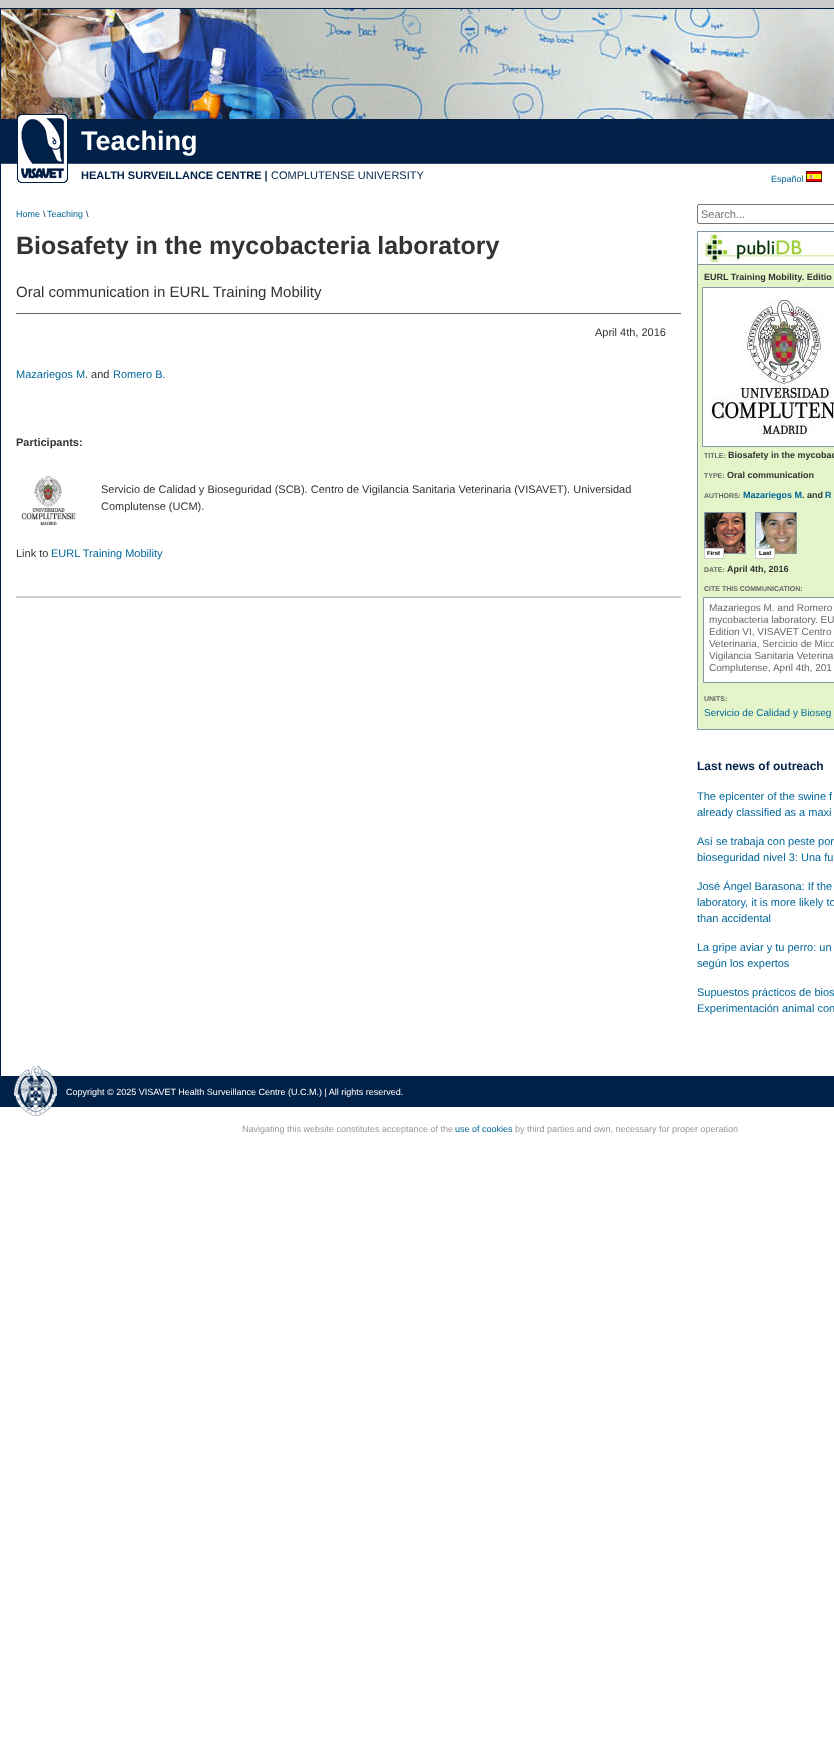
async function draw(canvas) {
	canvas.width = 834;
	canvas.height = 1757;
	const c = canvas.getContext('2d');
	c.miterLimit = 4;
	c.fontKerning = 'normal';
	async function loadImage(src) {
		const img = new Image();
		img.src = src;
		await img.decode();
		return img;
	}

	c.fillStyle = '#fff';
	c.fillRect(0, 0, 834, 1757);
	c.drawImage(await loadImage('img1.png'), 0, 0, 834, 8);
	c.strokeStyle = '#002147';
	c.strokeRect(0.5, 8.5, 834, 1098);
	c.drawImage(await loadImage('img2.png'), 1, 9, 833, 160);
	c.drawImage(await loadImage('img3.png'), 17, 114, 51, 69);
	c.font = 'bold 27px Liberation Sans';
	c.fillText('Teaching', 81, 150);
	c.font = 'bold 11px Liberation Sans';
	c.fillStyle = '#002147';
	c.fillText('HEALTH SURVEILLANCE CENTRE |', 81, 179);
	c.font = '11px Liberation Sans';
	c.fillText('COMPLUTENSE UNIVERSITY', 271, 179);
	c.font = '9px Liberation Sans';
	c.fillStyle = '#069';
	c.fillText('Español', 771, 182);
	c.drawImage(await loadImage('img4.png'), 806, 171, 16, 11);
	c.fillText('Home', 16, 217);
	c.fillStyle = '#002147';
	c.fillText('\\', 43, 217);
	c.fillStyle = '#069';
	c.fillText('Teaching', 47, 217);
	c.fillStyle = '#002147';
	c.fillText('\\', 86, 217);
	c.beginPath();
	c.roundRect(697.5, 204.5, 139, 19, 1.5);
	c.strokeStyle = '#767676';
	c.stroke();
	c.font = '11px Liberation Sans';
	c.fillStyle = '#757575';
	c.fillText('Search...', 701, 218);
	c.font = 'bold 25px Liberation Sans';
	c.fillStyle = '#333';
	c.fillText('Biosafety in the mycobacteria laboratory', 16, 254);
	c.fillStyle = '#666';
	c.fillRect(16, 313, 665, 1);
	c.font = '15px Liberation Sans';
	c.fillStyle = '#333';
	c.fillText('Oral communication in EURL Training Mobility', 16, 297);
	c.font = '11px Liberation Sans';
	c.fillText('April 4th, 2016', 595, 336);
	c.fillStyle = '#069';
	c.fillText('Mazariegos M', 16, 378);
	c.fillStyle = '#333';
	c.fillText('. and', 85, 378);
	c.fillStyle = '#069';
	c.fillText('Romero B.', 113, 378);
	c.font = 'bold 11px Liberation Sans';
	c.fillStyle = '#333';
	c.fillText('Participants:', 16, 446);
	c.drawImage(await loadImage('img5.png'), 21, 476, 55, 50);
	c.font = '11px Liberation Sans';
	for (const [text, x, y] of [
		['Servicio de Calidad y Bioseguridad (SCB). Centro de Vigilancia Sanitaria Veterinaria (VISAVET). Universidad', 101, 493],
		['Complutense (UCM).', 101, 510],
		['Link to', 16, 557],
	]) {
		c.fillText(text, x, y);
	}
	c.fillStyle = '#069';
	c.fillText('EURL Training Mobility', 51, 557);
	for (const [x, y, w, h, color] of [
		[16, 596, 665, 2, '#ccc'],
		[697, 231, 137, 1, '#8397a6'],
		[697, 231, 1, 33, '#8397a6'],
	]) {
		c.fillStyle = color;
		c.fillRect(x, y, w, h);
	}
	c.drawImage(await loadImage('img6.png'), 698, 232, 136, 32);
	c.fillStyle = '#e4f5c9';
	c.beginPath();
	c.rect(697.5, 264.5, 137, 465);
	c.fill();
	c.strokeStyle = '#8397a6';
	c.stroke();
	c.font = 'bold 9px Liberation Sans';
	c.fillStyle = '#333';
	c.fillText('EURL Training Mobility. Editio', 704, 280);
	c.fillStyle = '#fff';
	c.beginPath();
	c.rect(702.5, 287.5, 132, 159);
	c.fill();
	c.stroke();
	c.drawImage(await loadImage('img7.png'), 710, 300, 124, 136);
	c.font = 'bold 7px Liberation Sans';
	c.fillStyle = '#666';
	c.fillText('TITLE:', 704, 458);
	c.font = 'bold 9px Liberation Sans';
	c.fillStyle = '#333';
	c.fillText('Biosafety in the mycobac', 728, 458);
	c.font = 'bold 7px Liberation Sans';
	c.fillStyle = '#666';
	c.fillText('TYPE:', 704, 478);
	c.font = 'bold 9px Liberation Sans';
	c.fillStyle = '#333';
	c.fillText('Oral communication', 727, 478);
	c.font = 'bold 7px Liberation Sans';
	c.fillStyle = '#666';
	c.fillText('AUTHORS:', 704, 498);
	c.font = 'bold 9px Liberation Sans';
	c.fillStyle = '#069';
	c.fillText('Mazariegos M', 743, 498);
	c.fillStyle = '#333';
	c.fillText('. and', 802, 498);
	c.fillStyle = '#069';
	c.fillText('R', 825, 498);
	c.strokeRect(704.5, 512.5, 41, 41);
	c.drawImage(await loadImage('img8.png'), 705, 513, 40, 40);
	c.fillStyle = '#fff';
	c.beginPath();
	c.rect(704.5, 548.5, 19, 10);
	c.fill();
	c.strokeStyle = '#ccc';
	c.stroke();
	c.font = 'bold 6px Liberation Sans';
	c.fillStyle = '#000';
	c.fillText('First', 707, 555);
	c.strokeStyle = '#8397a6';
	c.strokeRect(755.5, 512.5, 41, 41);
	c.drawImage(await loadImage('img9.png'), 756, 513, 40, 40);
	c.fillStyle = '#fff';
	c.beginPath();
	c.rect(755.5, 548.5, 19, 10);
	c.fill();
	c.strokeStyle = '#ccc';
	c.stroke();
	c.fillStyle = '#000';
	c.fillText('Last', 759, 555);
	c.font = 'bold 7px Liberation Sans';
	c.fillStyle = '#666';
	c.fillText('DATE:', 704, 572);
	c.font = 'bold 9px Liberation Sans';
	c.fillStyle = '#333';
	c.fillText('April 4th, 2016', 727, 572);
	c.font = 'bold 7px Liberation Sans';
	c.fillStyle = '#666';
	c.fillText('CITE THIS COMMUNICATION:', 704, 591);
	c.fillStyle = '#fff';
	c.beginPath();
	c.rect(703.5, 597.5, 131, 85);
	c.fill();
	c.strokeStyle = '#8397a6';
	c.stroke();
	c.font = '10px Liberation Sans';
	c.fillStyle = '#666';
	for (const [text, x, y] of [
		['Mazariegos M. and Romero', 709, 611],
		['mycobacteria laboratory. EU', 709, 623],
		['Edition VI, VISAVET Centro', 709, 635],
		['Veterinaria, Sercicio de Mico', 709, 647],
		['Vigilancia Sanitaria Veterina', 709, 659],
		['Complutense, April 4th, 201', 709, 671],
	]) {
		c.fillText(text, x, y);
	}
	c.font = 'bold 7px Liberation Sans';
	c.fillText('UNITS:', 704, 701);
	c.font = '10px Liberation Sans';
	c.fillStyle = '#069';
	c.fillText('Servicio de Calidad y Bioseg', 704, 716);
	c.font = 'bold 12px Liberation Sans';
	c.fillStyle = '#002147';
	c.fillText('Last news of outreach', 697, 770);
	c.font = '11px Liberation Sans';
	c.fillStyle = '#069';
	for (const [text, x, y] of [
		['The epicenter of the swine f', 697, 800],
		['already classified as a maxi', 697, 816],
		['Así se trabaja con peste por', 697, 845],
		['bioseguridad nivel 3: Una fu', 697, 861],
		['José Ángel Barasona: If the', 697, 890],
		['laboratory, it is more likely to', 697, 906],
		['than accidental', 697, 922],
		['La gripe aviar y tu perro: un', 697, 951],
		['según los expertos', 697, 967],
		['Supuestos prácticos de bios', 697, 996],
		['Experimentación animal con', 697, 1012],
	]) {
		c.fillText(text, x, y);
	}
	c.fillStyle = '#002147';
	c.fillRect(1, 1076, 833, 30);
	c.drawImage(await loadImage('img10.png'), 14, 1066, 43, 50);
	c.font = '9px Liberation Sans';
	c.fillStyle = '#fff';
	c.fillText('Copyright © 2025 VISAVET Health Surveillance Centre (U.C.M.) | All rights reserved.', 66, 1095);
	c.fillStyle = '#999';
	c.fillText('Navigating this website constitutes acceptance of the', 242, 1132);
	c.fillStyle = '#069';
	c.fillText('use of cookies', 455, 1132);
	c.fillStyle = '#999';
	c.fillText('by third parties and own, necessary for proper operation', 515, 1132);
}

draw(document.querySelector('canvas'));
